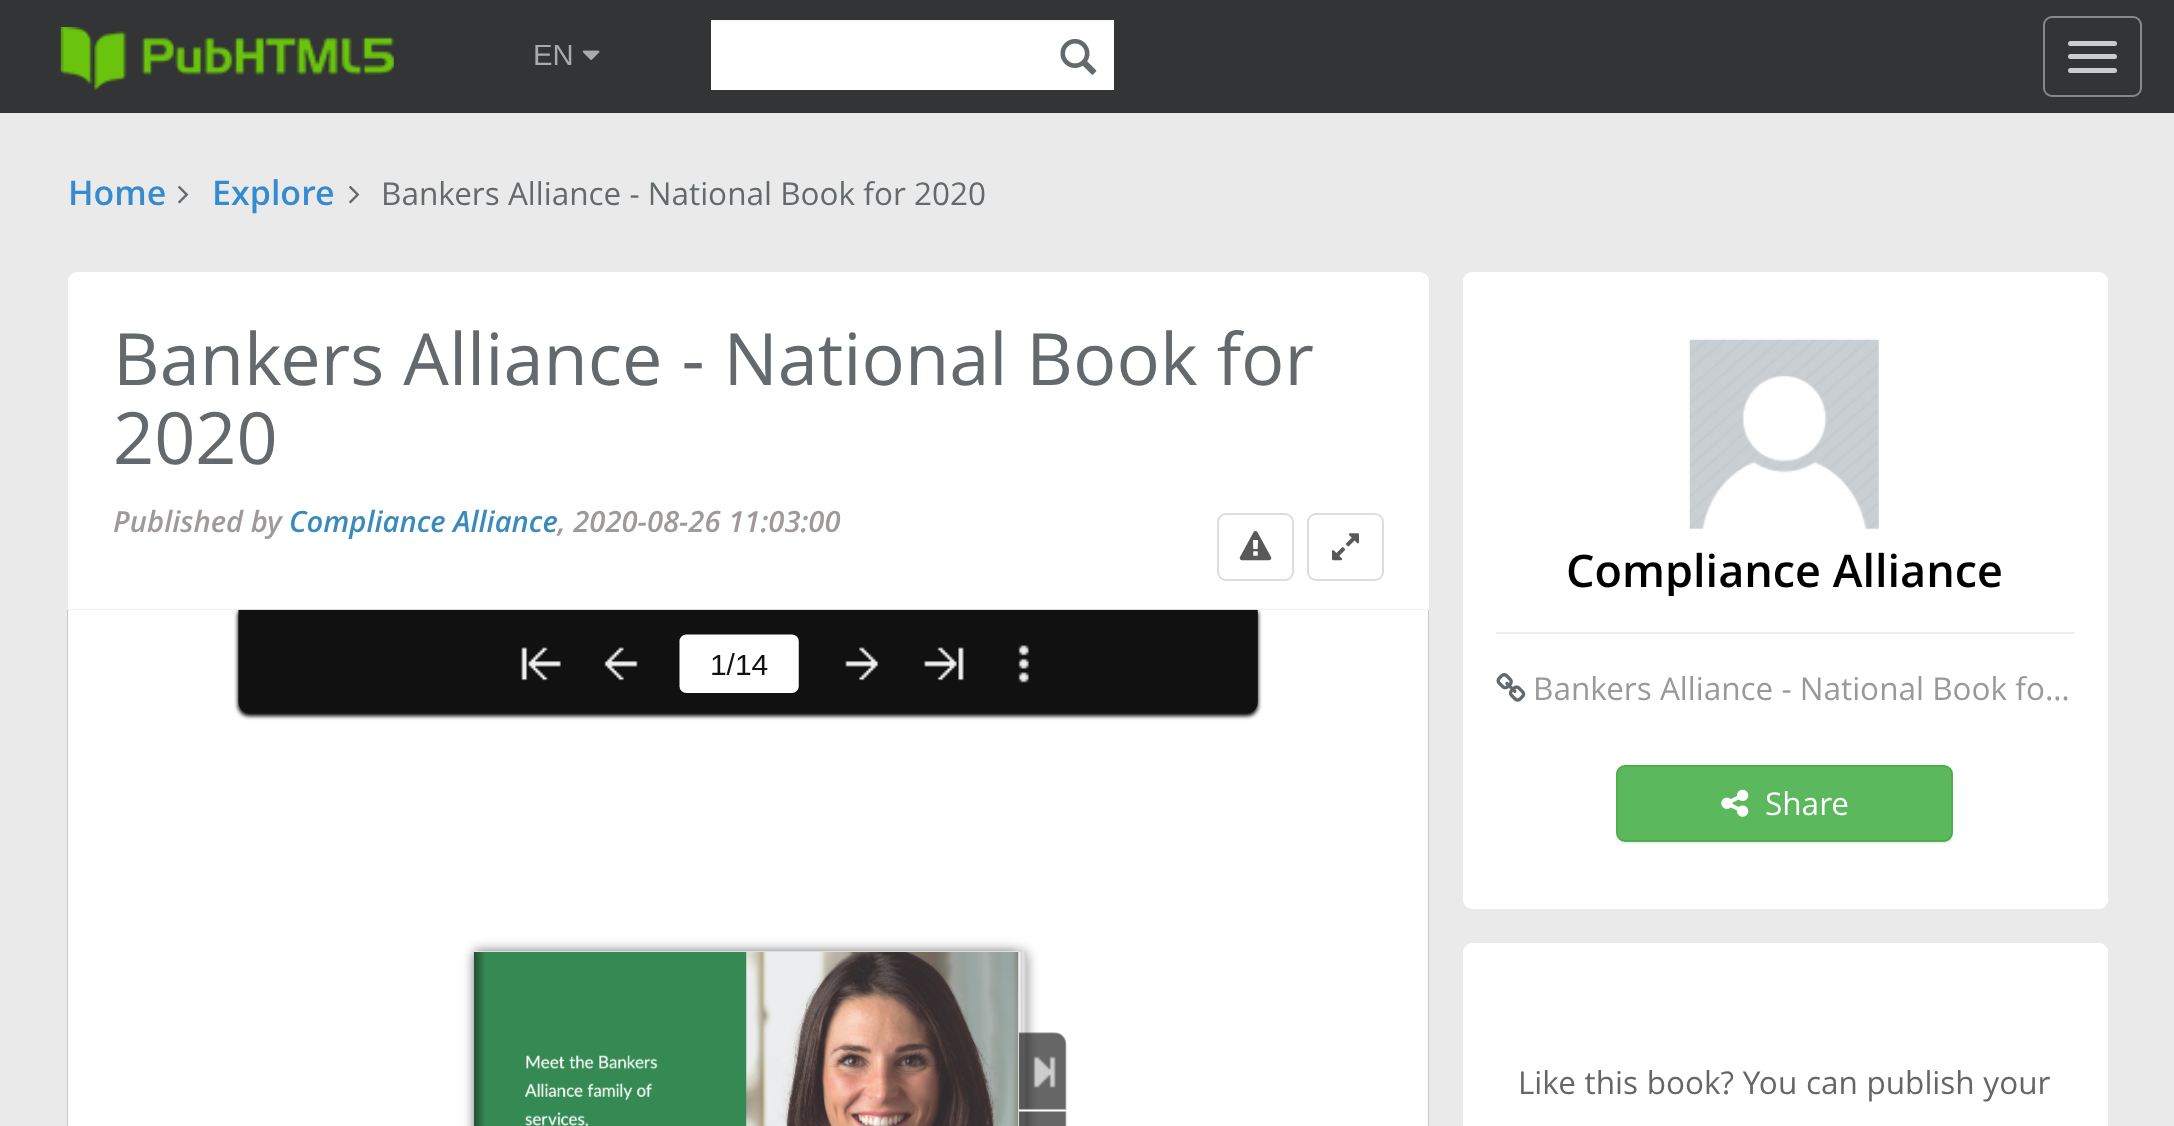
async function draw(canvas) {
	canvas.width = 2174;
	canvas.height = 1126;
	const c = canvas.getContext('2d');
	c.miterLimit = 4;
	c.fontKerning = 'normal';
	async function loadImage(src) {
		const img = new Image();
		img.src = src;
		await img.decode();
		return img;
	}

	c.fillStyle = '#eaeaea';
	c.fillRect(0, 0, 2174, 1126);
	c.fillStyle = '#323436';
	c.fillRect(0, 0, 2174, 113);
	c.drawImage(await loadImage('img1.png'), 60, 27, 334, 63);
	c.font = '29.25px Liberation Sans';
	c.fillStyle = '#aaa';
	c.fillText('EN', 533, 65);
	c.drawImage(await loadImage('img2.png'), 582, 50, 18, 10);
	c.fillStyle = '#fff';
	c.fillRect(711, 22, 403, 68);
	c.fillStyle = '#f9f9f9';
	c.fillRect(711, 20, 403, 2);
	c.drawImage(await loadImage('img3.png'), 1060, 39, 37, 36);
	c.beginPath();
	c.roundRect(2044, 17, 97, 79, 8);
	c.strokeStyle = '#888';
	c.lineWidth = 2;
	c.stroke();
	c.fillStyle = '#ccc';
	c.beginPath();
	c.roundRect(2068, 41, 49, 5, 2.5);
	c.fill();
	c.beginPath();
	c.roundRect(2068, 54, 49, 5, 2.5);
	c.fill();
	c.beginPath();
	c.roundRect(2068, 68, 49, 5, 2.5);
	c.fill();
	c.font = '600 34px Open Sans';
	c.fillStyle = '#368bcf';
	c.fillText('Home', 68, 205);
	c.drawImage(await loadImage('img4.png'), 178, 185, 11, 19);
	c.fillText('Explore', 212, 205);
	c.drawImage(await loadImage('img4.png'), 349, 185, 11, 19);
	c.font = '31.5px Open Sans';
	c.fillStyle = '#63696c';
	c.fillText('Bankers Alliance - National Book for 2020', 381, 205);
	c.fillStyle = '#fff';
	c.beginPath();
	c.roundRect(68, 272, 1361, 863, 9);
	c.fill();
	c.wordSpacing = '0.25px';
	c.font = '72px Open Sans';
	c.fillStyle = '#63696c';
	c.fillText('Bankers Alliance - National Book for', 113, 385);
	c.wordSpacing = '0px';
	c.fillText('2020', 113, 464);
	c.font = 'italic 600 29.25px Open Sans';
	c.fillStyle = '#a09999';
	c.fillText('Published by', 113, 532);
	c.fillStyle = '#3a8bbb';
	c.fillText('Compliance Alliance', 289, 532);
	c.fillStyle = '#a09999';
	c.fillText(', 2020-08-26 11:03:00', 558, 532);
	c.beginPath();
	c.roundRect(1218, 514, 75, 66, 8);
	c.strokeStyle = '#ddd';
	c.stroke();
	c.drawImage(await loadImage('img5.png'), 1239, 531, 33, 30);
	c.beginPath();
	c.roundRect(1308, 514, 75, 66, 8);
	c.stroke();
	c.drawImage(await loadImage('img6.png'), 1332, 533, 27, 28);
	c.drawImage(await loadImage('img7.png'), 67, 609, 1362, 517);
	c.fillStyle = '#fff';
	c.beginPath();
	c.roundRect(1463, 272, 645, 637, 9);
	c.fill();
	c.drawImage(await loadImage('img8.png'), 1689, 339, 190, 190);
	c.save();
	c.beginPath();
	c.rect(1537, 547, 495, 49);
	c.clip();
	c.font = '600 45px Open Sans';
	c.fillStyle = '#000';
	c.fillText('Compliance Alliance', 1566, 587);
	c.restore();
	c.fillStyle = '#eee';
	c.fillRect(1496, 632, 579, 2);
	c.drawImage(await loadImage('img9.png'), 1496, 673, 30, 29);
	c.font = '31.5px Open Sans';
	c.fillStyle = '#999';
	c.fillText('Bankers Alliance - National Book fo…', 1533, 700);
	c.fillStyle = '#f2f2f2';
	c.beginPath();
	c.moveTo(1616, 836);
	c.bezierCurveTo(1616, 840, 1620, 844, 1625, 844);
	c.lineTo(1944, 844);
	c.bezierCurveTo(1949, 844, 1953, 840, 1953, 835);
	c.lineTo(1953, 832);
	c.bezierCurveTo(1953, 837, 1949, 842, 1944, 842);
	c.lineTo(1624, 842);
	c.bezierCurveTo(1621, 842, 1617, 839, 1616, 836);
	c.closePath();
	c.fill();
	c.fillStyle = '#5cb85c';
	c.beginPath();
	c.roundRect(1617, 766, 335, 75, 8);
	c.fill();
	c.strokeStyle = '#4cae4c';
	c.stroke();
	c.drawImage(await loadImage('img10.png'), 1721, 789, 28, 28);
	c.fillStyle = '#fff';
	c.fillText('Share', 1765, 815);
	c.beginPath();
	c.roundRect(1463, 943, 645, 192, 9);
	c.fill();
	c.wordSpacing = '0.5px';
	c.fillStyle = '#666';
	c.fillText('Like this book? You can publish your', 1518, 1094);
}

draw(document.querySelector('canvas'));
